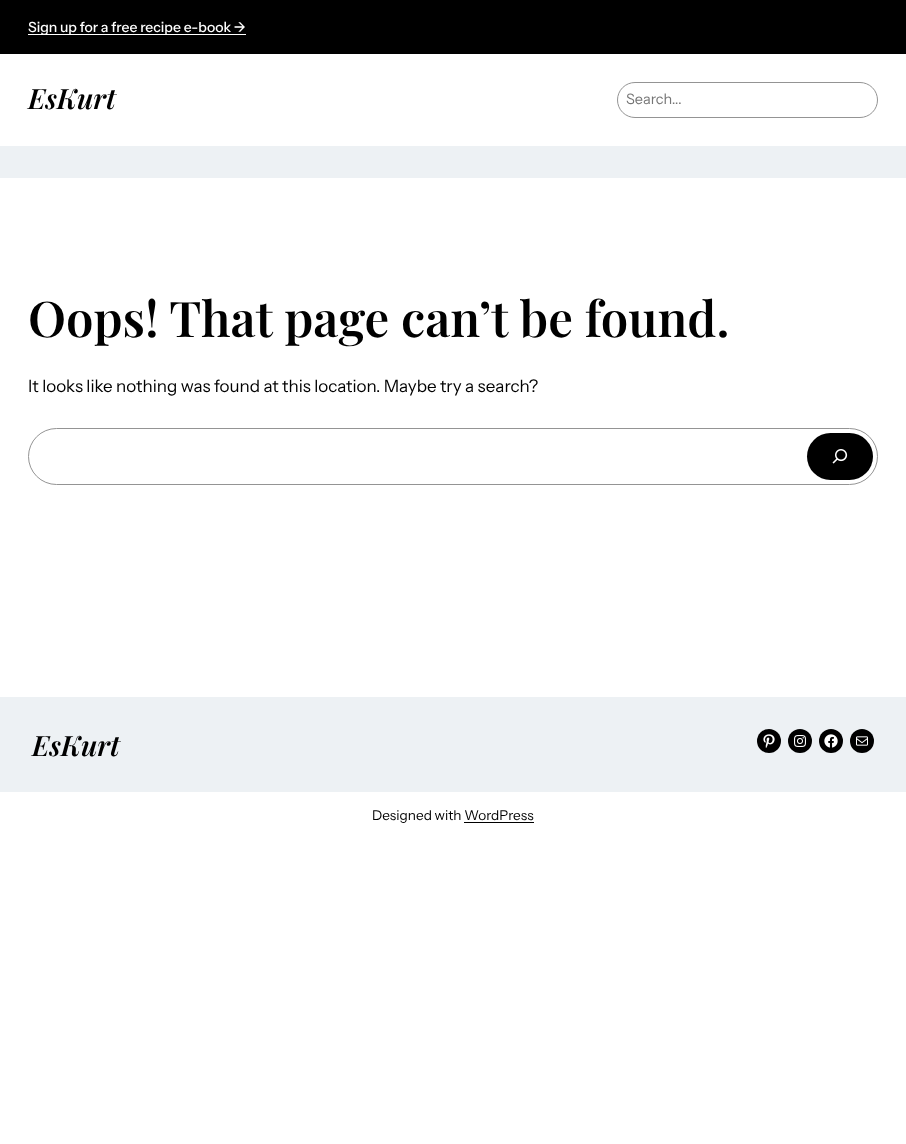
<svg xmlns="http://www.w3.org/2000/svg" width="906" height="1144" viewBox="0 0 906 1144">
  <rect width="100%" height="100%" fill="#ffffff"/>
  <rect x="0" y="0" width="906" height="54" fill="#000000"/>
  <rect x="28" y="34" width="218" height="1" fill="#ffffff"/>
  <text x="28" y="32" font-family="Instrument Sans" font-size="14" font-weight="500" fill="#ffffff">Sign up for a free recipe e-book →</text>
  <text x="28" y="109" font-family="Playfair Display" font-size="28" font-weight="600" font-style="italic" fill="#000000">EsKurt</text>
  <rect x="617.5" y="82.5" width="260" height="35" rx="17.5" fill="none" stroke="#949494"/>
  <text x="626" y="104" font-family="Instrument Sans" font-size="14.5" fill="#757575">Search...</text>
  <rect x="0" y="146" width="906" height="32" fill="#edf1f4"/>
  <text x="28" y="337" font-family="Playfair Display" font-size="49.1" font-weight="600" fill="#000000">Oops! That page can’t be found.</text>
  <text x="28" y="392" font-family="Instrument Sans" font-size="17" fill="#000000">It looks like nothing was found at this location. Maybe try a search?</text>
  <rect x="28.5" y="428.5" width="849" height="56" rx="28" fill="none" stroke="#949494"/>
  <rect x="807" y="433" width="66" height="47" rx="23.5" fill="#000000"/>
  <image x="832" y="449" width="16" height="15" href="img1.png"/>
  <rect x="0" y="697" width="906" height="95" fill="#edf1f4"/>
  <text x="32" y="756" font-family="Playfair Display" font-size="28" font-weight="600" font-style="italic" fill="#000000">EsKurt</text>
  <circle cx="769" cy="741" r="12" fill="#000000"/>
  <image x="763" y="734" width="12" height="14" href="img2.png"/>
  <circle cx="800" cy="741" r="12" fill="#000000"/>
  <image x="794" y="735" width="12" height="12" href="img3.png"/>
  <circle cx="831" cy="741" r="12" fill="#000000"/>
  <image x="824" y="734" width="14" height="14" href="img4.png"/>
  <circle cx="862" cy="741" r="12" fill="#000000"/>
  <image x="856" y="736" width="12" height="10" href="img5.png"/>
  <text x="372" y="820" font-family="Instrument Sans" font-size="13.6" fill="#000000">Designed with WordPress</text>
  <rect x="464" y="822" width="70" height="1" fill="#000000"/>
</svg>
